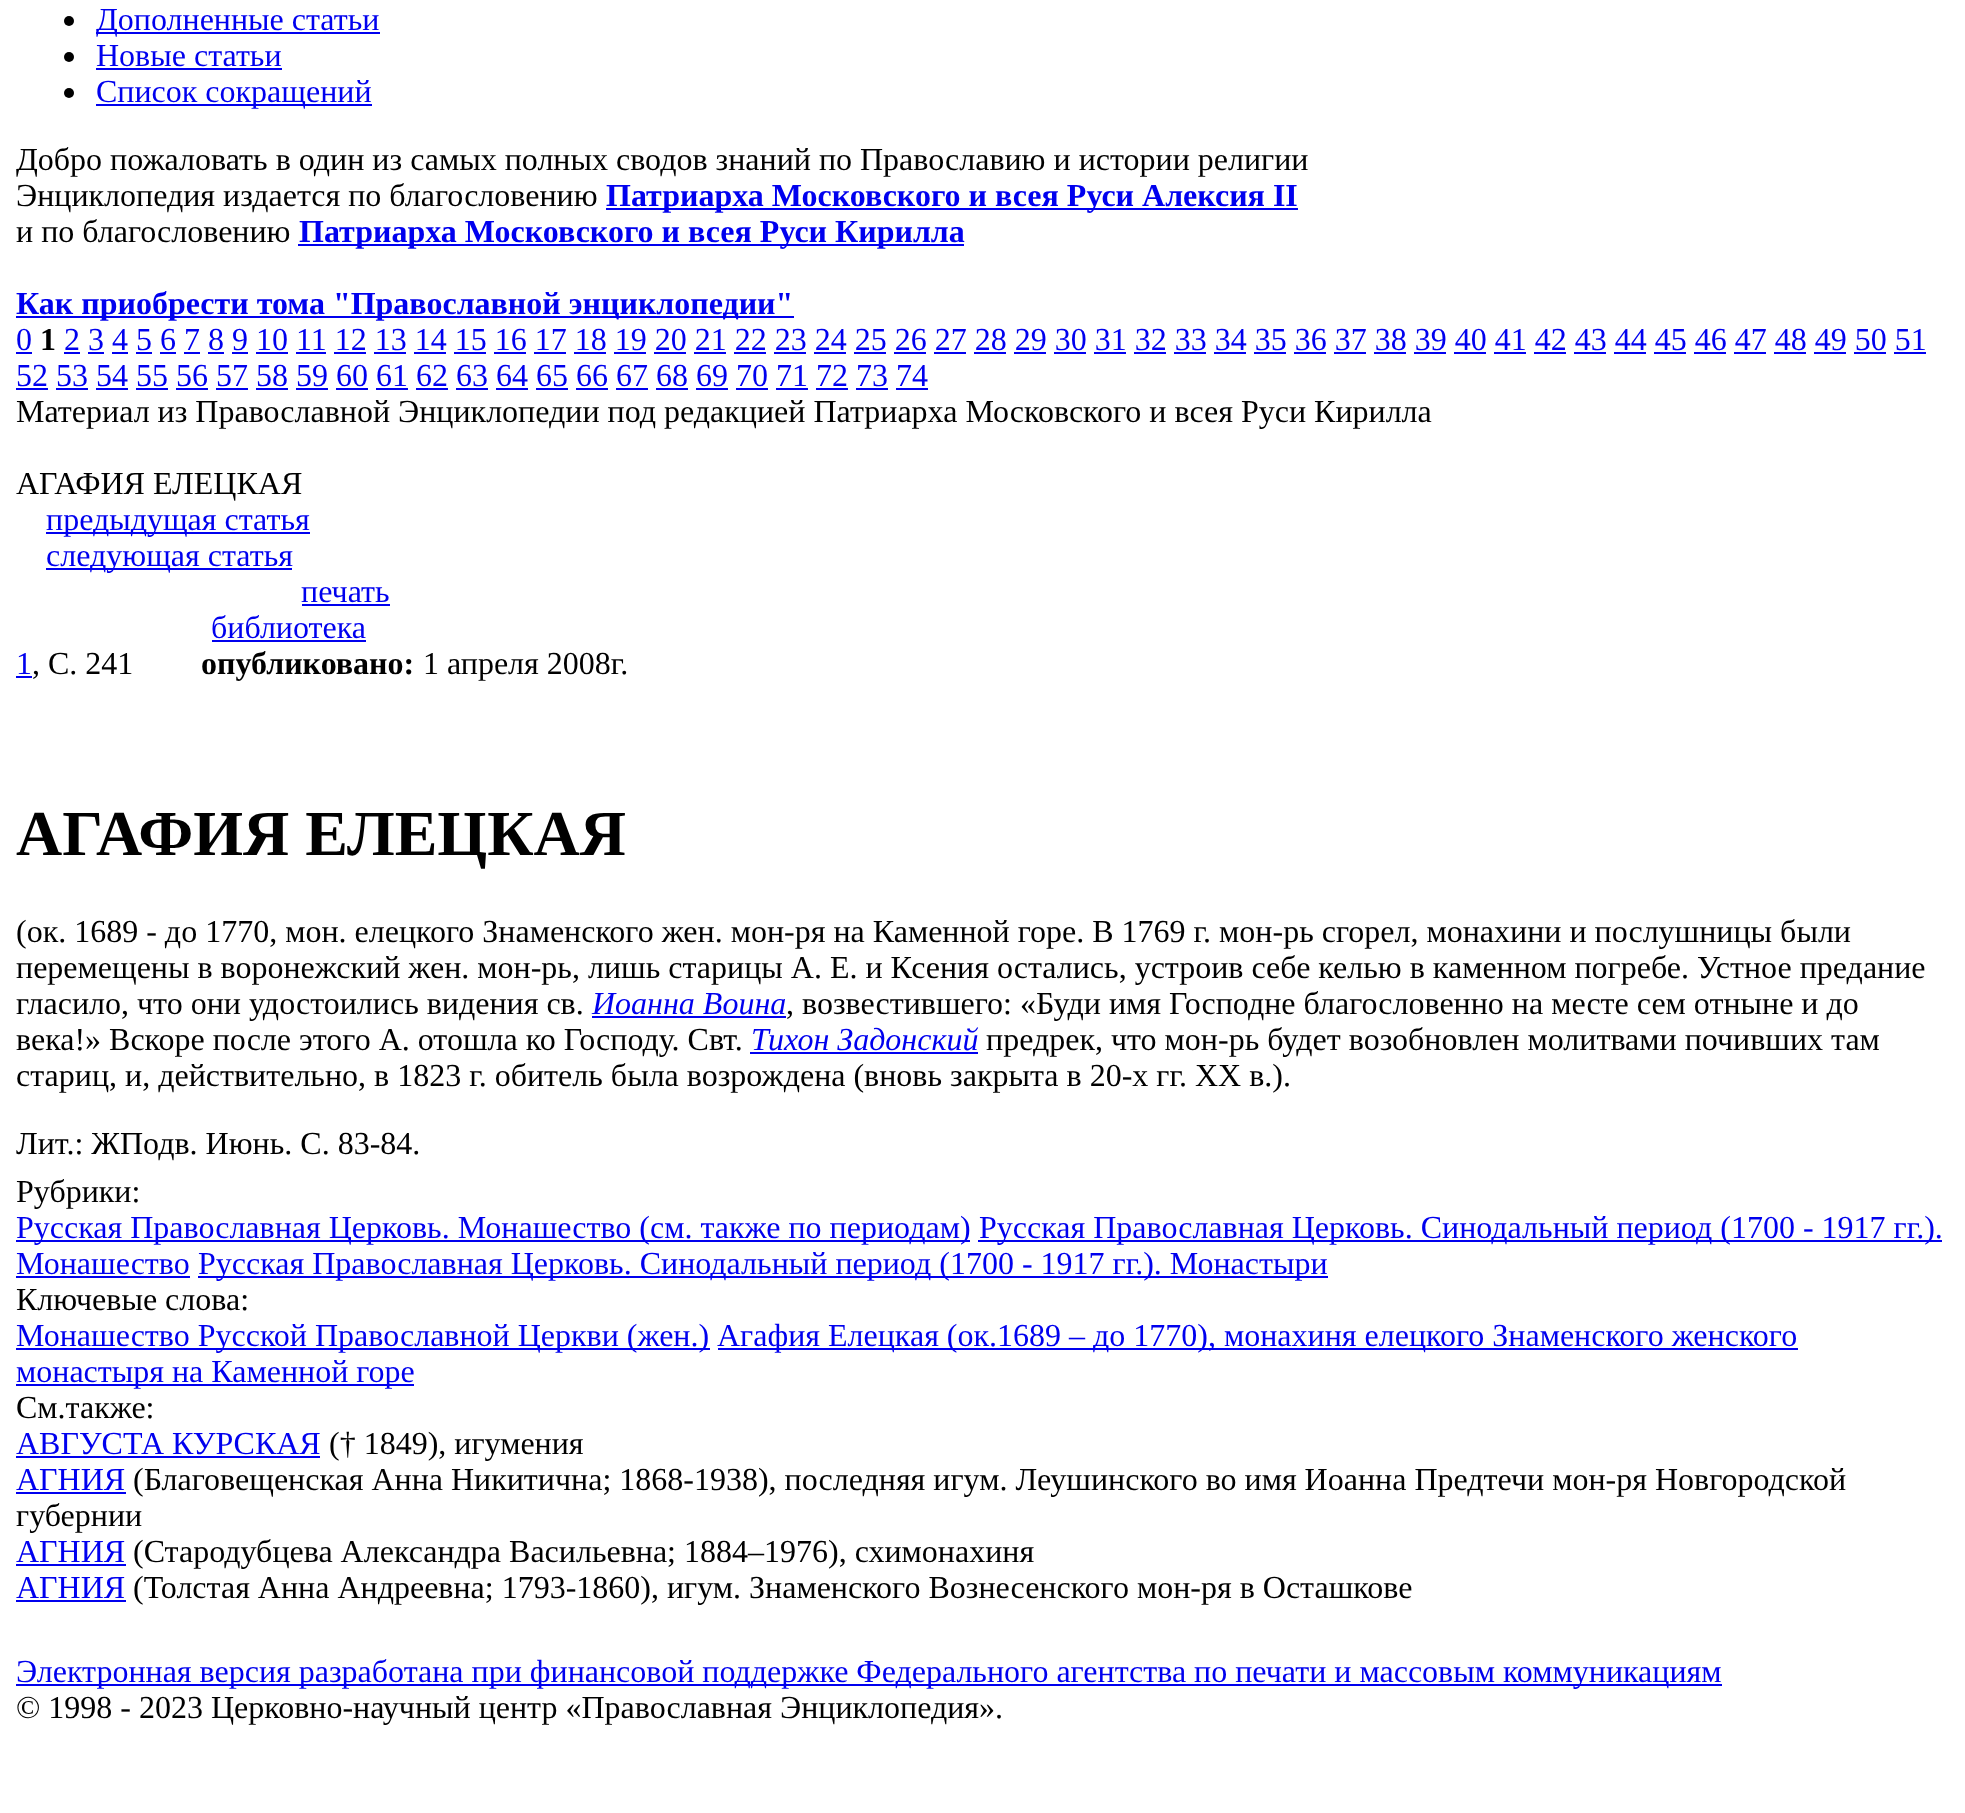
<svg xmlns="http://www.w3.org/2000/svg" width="1965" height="1813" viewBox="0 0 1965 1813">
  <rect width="100%" height="100%" fill="#ffffff"/>
  <circle cx="69" cy="21" r="5" fill="#000000"/>
  <rect x="96" y="32" width="284" height="2" fill="#0000ee"/>
  <text x="96" y="30" font-family="Liberation Serif" font-size="32" fill="#0000ee">Дополненные статьи</text>
  <circle cx="69" cy="57" r="5" fill="#000000"/>
  <text x="96" y="66" font-family="Liberation Serif" font-size="32" fill="#0000ee">Новые статьи</text>
  <rect x="96" y="68" width="186" height="2" fill="#0000ee"/>
  <circle cx="69" cy="93" r="5" fill="#000000"/>
  <rect x="96" y="104" width="276" height="2" fill="#0000ee"/>
  <text x="96" y="102" font-family="Liberation Serif" font-size="32" fill="#0000ee">Список сокращений</text>
  <text x="16" y="170" font-family="Liberation Serif" font-size="32" fill="#000000">Добро пожаловать в один из самых полных сводов знаний по Православию и истории религии</text>
  <text x="16" y="206" font-family="Liberation Serif" font-size="32" fill="#000000">Энциклопедия издается по благословению</text>
  <rect x="606" y="208" width="692" height="2" fill="#0000ee"/>
  <text x="606" y="206" font-family="Liberation Serif" font-size="32" font-weight="bold" fill="#0000ee">Патриарха Московского и всея Руси Алексия II</text>
  <text x="16" y="242" font-family="Liberation Serif" font-size="32" fill="#000000">и по благословению</text>
  <rect x="298" y="244" width="666" height="2" fill="#0000ee"/>
  <text x="299" y="242" font-family="Liberation Serif" font-size="32" font-weight="bold" fill="#0000ee">Патриарха Московского и всея Руси Кирилла</text>
  <rect x="16" y="316" width="778" height="2" fill="#0000ee"/>
  <text x="16" y="314" font-family="Liberation Serif" font-size="32" font-weight="bold" fill="#0000ee">Как приобрести тома "Православной энциклопедии"</text>
  <text x="16" y="350" font-family="Liberation Serif" font-size="32" fill="#0000ee">0</text>
  <rect x="16" y="352" width="16" height="2" fill="#0000ee"/>
  <text x="40" y="350" font-family="Liberation Serif" font-size="32" font-weight="bold" fill="#000000">1</text>
  <text x="64" y="350" font-family="Liberation Serif" font-size="32" fill="#0000ee">2 3 4 5 6 7 8 9 10 11 12 13 14 15 16 17 18 19 20 21 22 23 24 25 26 27 28 29 30 31 32 33 34 35 36 37 38 39 40 41 42 43 44 45 46 47 48 49 50 51</text>
  <rect x="64" y="352" width="16" height="2" fill="#0000ee"/>
  <rect x="88" y="352" width="16" height="2" fill="#0000ee"/>
  <rect x="112" y="352" width="16" height="2" fill="#0000ee"/>
  <rect x="136" y="352" width="16" height="2" fill="#0000ee"/>
  <rect x="160" y="352" width="16" height="2" fill="#0000ee"/>
  <rect x="184" y="352" width="16" height="2" fill="#0000ee"/>
  <rect x="208" y="352" width="16" height="2" fill="#0000ee"/>
  <rect x="232" y="352" width="16" height="2" fill="#0000ee"/>
  <rect x="256" y="352" width="32" height="2" fill="#0000ee"/>
  <rect x="296" y="352" width="30" height="2" fill="#0000ee"/>
  <rect x="334" y="352" width="32" height="2" fill="#0000ee"/>
  <rect x="374" y="352" width="32" height="2" fill="#0000ee"/>
  <rect x="414" y="352" width="32" height="2" fill="#0000ee"/>
  <rect x="454" y="352" width="32" height="2" fill="#0000ee"/>
  <rect x="494" y="352" width="32" height="2" fill="#0000ee"/>
  <rect x="534" y="352" width="32" height="2" fill="#0000ee"/>
  <rect x="574" y="352" width="32" height="2" fill="#0000ee"/>
  <rect x="614" y="352" width="32" height="2" fill="#0000ee"/>
  <rect x="654" y="352" width="32" height="2" fill="#0000ee"/>
  <rect x="694" y="352" width="32" height="2" fill="#0000ee"/>
  <rect x="734" y="352" width="32" height="2" fill="#0000ee"/>
  <rect x="774" y="352" width="32" height="2" fill="#0000ee"/>
  <rect x="814" y="352" width="32" height="2" fill="#0000ee"/>
  <rect x="854" y="352" width="32" height="2" fill="#0000ee"/>
  <rect x="894" y="352" width="32" height="2" fill="#0000ee"/>
  <rect x="934" y="352" width="32" height="2" fill="#0000ee"/>
  <rect x="974" y="352" width="32" height="2" fill="#0000ee"/>
  <rect x="1014" y="352" width="32" height="2" fill="#0000ee"/>
  <rect x="1054" y="352" width="32" height="2" fill="#0000ee"/>
  <rect x="1094" y="352" width="32" height="2" fill="#0000ee"/>
  <rect x="1134" y="352" width="32" height="2" fill="#0000ee"/>
  <rect x="1174" y="352" width="32" height="2" fill="#0000ee"/>
  <rect x="1214" y="352" width="32" height="2" fill="#0000ee"/>
  <rect x="1254" y="352" width="32" height="2" fill="#0000ee"/>
  <rect x="1294" y="352" width="32" height="2" fill="#0000ee"/>
  <rect x="1334" y="352" width="32" height="2" fill="#0000ee"/>
  <rect x="1374" y="352" width="32" height="2" fill="#0000ee"/>
  <rect x="1414" y="352" width="32" height="2" fill="#0000ee"/>
  <rect x="1454" y="352" width="32" height="2" fill="#0000ee"/>
  <rect x="1494" y="352" width="32" height="2" fill="#0000ee"/>
  <rect x="1534" y="352" width="32" height="2" fill="#0000ee"/>
  <rect x="1574" y="352" width="32" height="2" fill="#0000ee"/>
  <rect x="1614" y="352" width="32" height="2" fill="#0000ee"/>
  <rect x="1654" y="352" width="32" height="2" fill="#0000ee"/>
  <rect x="1694" y="352" width="32" height="2" fill="#0000ee"/>
  <rect x="1734" y="352" width="32" height="2" fill="#0000ee"/>
  <rect x="1774" y="352" width="32" height="2" fill="#0000ee"/>
  <rect x="1814" y="352" width="32" height="2" fill="#0000ee"/>
  <rect x="1854" y="352" width="32" height="2" fill="#0000ee"/>
  <rect x="1894" y="352" width="32" height="2" fill="#0000ee"/>
  <text x="16" y="386" font-family="Liberation Serif" font-size="32" fill="#0000ee">52 53 54 55 56 57 58 59 60 61 62 63 64 65 66 67 68 69 70 71 72 73 74</text>
  <rect x="16" y="388" width="32" height="2" fill="#0000ee"/>
  <rect x="56" y="388" width="32" height="2" fill="#0000ee"/>
  <rect x="96" y="388" width="32" height="2" fill="#0000ee"/>
  <rect x="136" y="388" width="32" height="2" fill="#0000ee"/>
  <rect x="176" y="388" width="32" height="2" fill="#0000ee"/>
  <rect x="216" y="388" width="32" height="2" fill="#0000ee"/>
  <rect x="256" y="388" width="32" height="2" fill="#0000ee"/>
  <rect x="296" y="388" width="32" height="2" fill="#0000ee"/>
  <rect x="336" y="388" width="32" height="2" fill="#0000ee"/>
  <rect x="376" y="388" width="32" height="2" fill="#0000ee"/>
  <rect x="416" y="388" width="32" height="2" fill="#0000ee"/>
  <rect x="456" y="388" width="32" height="2" fill="#0000ee"/>
  <rect x="496" y="388" width="32" height="2" fill="#0000ee"/>
  <rect x="536" y="388" width="32" height="2" fill="#0000ee"/>
  <rect x="576" y="388" width="32" height="2" fill="#0000ee"/>
  <rect x="616" y="388" width="32" height="2" fill="#0000ee"/>
  <rect x="656" y="388" width="32" height="2" fill="#0000ee"/>
  <rect x="696" y="388" width="32" height="2" fill="#0000ee"/>
  <rect x="736" y="388" width="32" height="2" fill="#0000ee"/>
  <rect x="776" y="388" width="32" height="2" fill="#0000ee"/>
  <rect x="816" y="388" width="32" height="2" fill="#0000ee"/>
  <rect x="856" y="388" width="32" height="2" fill="#0000ee"/>
  <rect x="896" y="388" width="32" height="2" fill="#0000ee"/>
  <text x="16" y="422" font-family="Liberation Serif" font-size="32" fill="#000000">Материал из Православной Энциклопедии под редакцией Патриарха Московского и всея Руси Кирилла</text>
  <text x="16" y="494" font-family="Liberation Serif" font-size="32" fill="#000000">АГАФИЯ ЕЛЕЦКАЯ</text>
  <rect x="46" y="532" width="264" height="2" fill="#0000ee"/>
  <text x="46" y="530" font-family="Liberation Serif" font-size="32" fill="#0000ee">предыдущая статья</text>
  <rect x="46" y="568" width="246" height="2" fill="#0000ee"/>
  <text x="46" y="566" font-family="Liberation Serif" font-size="32" fill="#0000ee">следующая статья</text>
  <text x="301" y="602" font-family="Liberation Serif" font-size="32" fill="#0000ee">печать</text>
  <rect x="302" y="604" width="88" height="2" fill="#0000ee"/>
  <text x="211" y="638" font-family="Liberation Serif" font-size="32" fill="#0000ee">библиотека</text>
  <rect x="212" y="640" width="154" height="2" fill="#0000ee"/>
  <text x="16" y="674" font-family="Liberation Serif" font-size="32" fill="#0000ee">1</text>
  <text x="32" y="674" font-family="Liberation Serif" font-size="32" fill="#000000">, С. 241</text>
  <rect x="16" y="676" width="16" height="2" fill="#0000ee"/>
  <text x="201" y="674" font-family="Liberation Serif" font-size="32" font-weight="bold" fill="#000000">опубликовано:</text>
  <text x="423" y="674" font-family="Liberation Serif" font-size="32" fill="#000000">1 апреля 2008г.</text>
  <text x="16" y="855" font-family="Liberation Serif" font-size="64" font-weight="bold" fill="#000000">АГАФИЯ ЕЛЕЦКАЯ</text>
  <text x="16" y="942" font-family="Liberation Serif" font-size="32" fill="#000000">(ок. 1689 - до 1770, мон. елецкого Знаменского жен. мон-ря на Каменной горе. В 1769 г. мон-рь сгорел, монахини и послушницы были</text>
  <text x="16" y="978" font-family="Liberation Serif" font-size="32" fill="#000000">перемещены в воронежский жен. мон-рь, лишь старицы А. Е. и Ксения остались, устроив себе келью в каменном погребе. Устное предание</text>
  <text x="16" y="1014" font-family="Liberation Serif" font-size="32" fill="#000000">гласило, что они удостоились видения св.</text>
  <text x="592" y="1014" font-family="Liberation Serif" font-size="32" font-style="italic" fill="#0000ee">Иоанна Воина</text>
  <rect x="592" y="1016" width="194" height="2" fill="#0000ee"/>
  <text x="786" y="1014" font-family="Liberation Serif" font-size="32" fill="#000000">, возвестившего: «Буди имя Господне благословенно на месте сем отныне и до</text>
  <text x="16" y="1050" font-family="Liberation Serif" font-size="32" fill="#000000">века!» Вскоре после этого А. отошла ко Господу. Свт.</text>
  <text x="751" y="1050" font-family="Liberation Serif" font-size="32" font-style="italic" fill="#0000ee">Тихон Задонский</text>
  <rect x="750" y="1052" width="228" height="2" fill="#0000ee"/>
  <text x="986" y="1050" font-family="Liberation Serif" font-size="32" fill="#000000">предрек, что мон-рь будет возобновлен молитвами почивших там</text>
  <text x="16" y="1086" font-family="Liberation Serif" font-size="32" fill="#000000">стариц, и, действительно, в 1823 г. обитель была возрождена (вновь закрыта в 20-х гг. ХХ в.).</text>
  <text x="16" y="1154" font-family="Liberation Serif" font-size="32" fill="#000000">Лит.: ЖПодв. Июнь. С. 83-84.</text>
  <text x="16" y="1202" font-family="Liberation Serif" font-size="32" fill="#000000">Рубрики:</text>
  <rect x="16" y="1240" width="954" height="2" fill="#0000ee"/>
  <text x="16" y="1238" font-family="Liberation Serif" font-size="32" fill="#0000ee">Русская Православная Церковь. Монашество (см. также по периодам)</text>
  <rect x="978" y="1240" width="964" height="2" fill="#0000ee"/>
  <text x="979" y="1238" font-family="Liberation Serif" font-size="32" fill="#0000ee">Русская Православная Церковь. Синодальный период (1700 - 1917 гг.).</text>
  <text x="16" y="1274" font-family="Liberation Serif" font-size="32" fill="#0000ee">Монашество</text>
  <rect x="16" y="1276" width="174" height="2" fill="#0000ee"/>
  <rect x="198" y="1276" width="1130" height="2" fill="#0000ee"/>
  <text x="198" y="1274" font-family="Liberation Serif" font-size="32" fill="#0000ee">Русская Православная Церковь. Синодальный период (1700 - 1917 гг.). Монастыри</text>
  <text x="16" y="1310" font-family="Liberation Serif" font-size="32" fill="#000000">Ключевые слова:</text>
  <rect x="16" y="1348" width="694" height="2" fill="#0000ee"/>
  <text x="16" y="1346" font-family="Liberation Serif" font-size="32" fill="#0000ee">Монашество Русской Православной Церкви (жен.)</text>
  <rect x="718" y="1348" width="1080" height="2" fill="#0000ee"/>
  <text x="717" y="1346" font-family="Liberation Serif" font-size="32" fill="#0000ee">Агафия Елецкая (ок.1689 – до 1770), монахиня елецкого Знаменского женского</text>
  <rect x="16" y="1384" width="398" height="2" fill="#0000ee"/>
  <text x="16" y="1382" font-family="Liberation Serif" font-size="32" fill="#0000ee">монастыря на Каменной горе</text>
  <text x="16" y="1418" font-family="Liberation Serif" font-size="32" fill="#000000">См.также:</text>
  <text x="16" y="1454" font-family="Liberation Serif" font-size="32" fill="#0000ee">АВГУСТА КУРСКАЯ</text>
  <rect x="16" y="1456" width="304" height="2" fill="#0000ee"/>
  <text x="329" y="1454" font-family="Liberation Serif" font-size="32" fill="#000000">(† 1849), игумения</text>
  <text x="16" y="1490" font-family="Liberation Serif" font-size="32" fill="#0000ee">АГНИЯ</text>
  <rect x="16" y="1492" width="110" height="2" fill="#0000ee"/>
  <text x="133" y="1490" font-family="Liberation Serif" font-size="32" fill="#000000">(Благовещенская Анна Никитична; 1868-1938), последняя игум. Леушинского во имя Иоанна Предтечи мон-ря Новгородской</text>
  <text x="16" y="1526" font-family="Liberation Serif" font-size="32" fill="#000000">губернии</text>
  <text x="16" y="1562" font-family="Liberation Serif" font-size="32" fill="#0000ee">АГНИЯ</text>
  <rect x="16" y="1564" width="110" height="2" fill="#0000ee"/>
  <text x="133" y="1562" font-family="Liberation Serif" font-size="32" fill="#000000">(Стародубцева Александра Васильевна; 1884–1976), схимонахиня</text>
  <text x="16" y="1598" font-family="Liberation Serif" font-size="32" fill="#0000ee">АГНИЯ</text>
  <rect x="16" y="1600" width="110" height="2" fill="#0000ee"/>
  <text x="133" y="1598" font-family="Liberation Serif" font-size="32" fill="#000000">(Толстая Анна Андреевна; 1793-1860), игум. Знаменского Вознесенского мон-ря в Осташкове</text>
  <rect x="16" y="1684" width="1706" height="2" fill="#0000ee"/>
  <text x="16" y="1682" font-family="Liberation Serif" font-size="32" fill="#0000ee">Электронная версия разработана при финансовой поддержке Федерального агентства по печати и массовым коммуникациям</text>
  <text x="16" y="1718" font-family="Liberation Serif" font-size="32" fill="#000000">© 1998 - 2023 Церковно-научный центр «Православная Энциклопедия».</text>
</svg>
